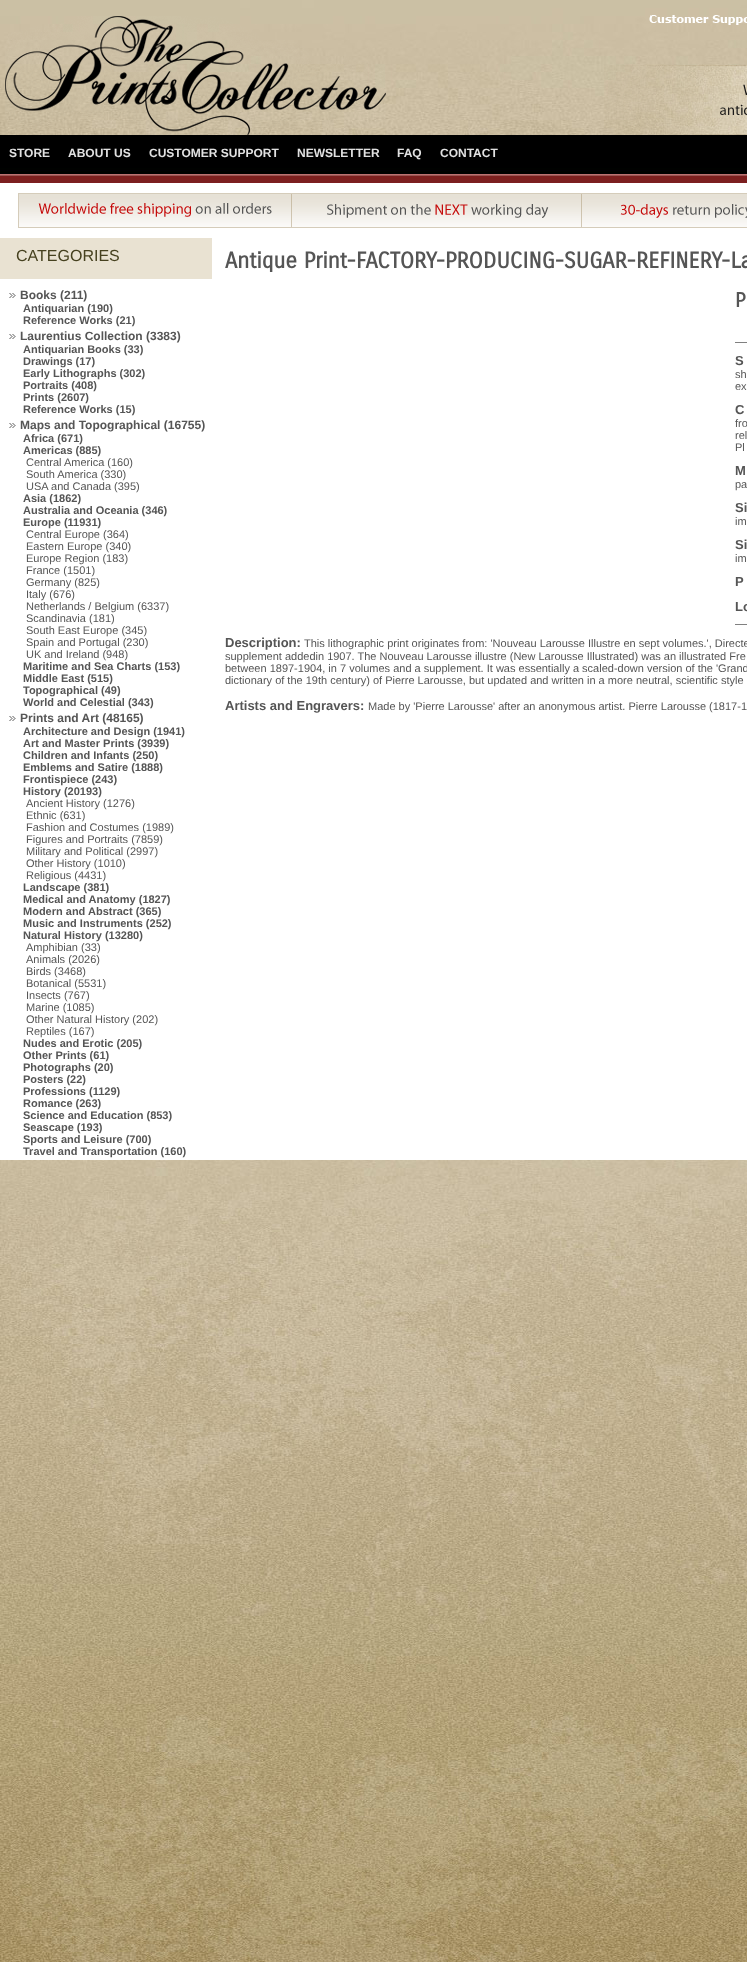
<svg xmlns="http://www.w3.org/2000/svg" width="747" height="1962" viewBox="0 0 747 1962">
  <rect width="100%" height="100%" fill="#ffffff"/>
  <image x="0" y="0" width="747" height="1962" href="img1.png"/>
  <image x="5" y="16" width="381" height="119" href="img2.png"/>
  <image x="649" y="15" width="98" height="10" href="img3.png"/>
  <image x="604" y="65" width="143" height="69" href="img4.png"/>
  <image x="0" y="135" width="747" height="48" href="img5.png"/>
  <text x="9" y="157" font-family="Liberation Sans" font-size="12" font-weight="bold" fill="#e1e1e1">STORE</text>
  <text x="68" y="157" font-family="Liberation Sans" font-size="12" font-weight="bold" fill="#e1e1e1">ABOUT US</text>
  <text x="149" y="157" font-family="Liberation Sans" font-size="12" font-weight="bold" fill="#e1e1e1">CUSTOMER SUPPORT</text>
  <text x="297" y="157" font-family="Liberation Sans" font-size="12" font-weight="bold" fill="#e1e1e1">NEWSLETTER</text>
  <text x="397" y="157" font-family="Liberation Sans" font-size="12" font-weight="bold" fill="#e1e1e1">FAQ</text>
  <text x="440" y="157" font-family="Liberation Sans" font-size="12" font-weight="bold" fill="#e1e1e1">CONTACT</text>
  <rect x="0" y="183" width="747" height="977" fill="#ffffff"/>
  <image x="18" y="193" width="729" height="35" href="img6.png"/>
  <rect x="0" y="238" width="212" height="41" fill="#e9e2d2"/>
  <text x="16" y="261" font-family="Liberation Sans" font-size="16" fill="#46411f">CATEGORIES</text>
  <image x="9" y="293" width="7" height="5" href="img7.png"/>
  <text x="20" y="299" font-family="Liberation Sans" font-size="12" font-weight="bold" fill="#555555">Books (211)</text>
  <text x="23" y="312" font-family="Liberation Sans" font-size="11" font-weight="bold" fill="#555555">Antiquarian (190)</text>
  <text x="23" y="324" font-family="Liberation Sans" font-size="11" font-weight="bold" fill="#555555">Reference Works (21)</text>
  <image x="9" y="334" width="7" height="5" href="img7.png"/>
  <text x="20" y="340" font-family="Liberation Sans" font-size="12" font-weight="bold" fill="#555555">Laurentius Collection (3383)</text>
  <text x="23" y="353" font-family="Liberation Sans" font-size="11" font-weight="bold" fill="#555555">Antiquarian Books (33)</text>
  <text x="23" y="365" font-family="Liberation Sans" font-size="11" font-weight="bold" fill="#555555">Drawings (17)</text>
  <text x="23" y="377" font-family="Liberation Sans" font-size="11" font-weight="bold" fill="#555555">Early Lithographs (302)</text>
  <text x="23" y="389" font-family="Liberation Sans" font-size="11" font-weight="bold" fill="#555555">Portraits (408)</text>
  <text x="23" y="401" font-family="Liberation Sans" font-size="11" font-weight="bold" fill="#555555">Prints (2607)</text>
  <text x="23" y="413" font-family="Liberation Sans" font-size="11" font-weight="bold" fill="#555555">Reference Works (15)</text>
  <image x="9" y="423" width="7" height="5" href="img7.png"/>
  <text x="20" y="429" font-family="Liberation Sans" font-size="12" font-weight="bold" fill="#555555">Maps and Topographical (16755)</text>
  <text x="23" y="442" font-family="Liberation Sans" font-size="11" font-weight="bold" fill="#555555">Africa (671)</text>
  <text x="23" y="454" font-family="Liberation Sans" font-size="11" font-weight="bold" fill="#555555">Americas (885)</text>
  <text x="26" y="466" font-family="Liberation Sans" font-size="11" fill="#555555">Central America (160)</text>
  <text x="26" y="478" font-family="Liberation Sans" font-size="11" fill="#555555">South America (330)</text>
  <text x="26" y="490" font-family="Liberation Sans" font-size="11" fill="#555555">USA and Canada (395)</text>
  <text x="23" y="502" font-family="Liberation Sans" font-size="11" font-weight="bold" fill="#555555">Asia (1862)</text>
  <text x="23" y="514" font-family="Liberation Sans" font-size="11" font-weight="bold" fill="#555555">Australia and Oceania (346)</text>
  <text x="23" y="526" font-family="Liberation Sans" font-size="11" font-weight="bold" fill="#555555">Europe (11931)</text>
  <text x="26" y="538" font-family="Liberation Sans" font-size="11" fill="#555555">Central Europe (364)</text>
  <text x="26" y="550" font-family="Liberation Sans" font-size="11" fill="#555555">Eastern Europe (340)</text>
  <text x="26" y="562" font-family="Liberation Sans" font-size="11" fill="#555555">Europe Region (183)</text>
  <text x="26" y="574" font-family="Liberation Sans" font-size="11" fill="#555555">France (1501)</text>
  <text x="26" y="586" font-family="Liberation Sans" font-size="11" fill="#555555">Germany (825)</text>
  <text x="26" y="598" font-family="Liberation Sans" font-size="11" fill="#555555">Italy (676)</text>
  <text x="26" y="610" font-family="Liberation Sans" font-size="11" fill="#555555">Netherlands / Belgium (6337)</text>
  <text x="26" y="622" font-family="Liberation Sans" font-size="11" fill="#555555">Scandinavia (181)</text>
  <text x="26" y="634" font-family="Liberation Sans" font-size="11" fill="#555555">South East Europe (345)</text>
  <text x="26" y="646" font-family="Liberation Sans" font-size="11" fill="#555555">Spain and Portugal (230)</text>
  <text x="26" y="658" font-family="Liberation Sans" font-size="11" fill="#555555">UK and Ireland (948)</text>
  <text x="23" y="670" font-family="Liberation Sans" font-size="11" font-weight="bold" fill="#555555">Maritime and Sea Charts (153)</text>
  <text x="23" y="682" font-family="Liberation Sans" font-size="11" font-weight="bold" fill="#555555">Middle East (515)</text>
  <text x="23" y="694" font-family="Liberation Sans" font-size="11" font-weight="bold" fill="#555555">Topographical (49)</text>
  <text x="23" y="706" font-family="Liberation Sans" font-size="11" font-weight="bold" fill="#555555">World and Celestial (343)</text>
  <image x="9" y="716" width="7" height="5" href="img7.png"/>
  <text x="20" y="722" font-family="Liberation Sans" font-size="12" font-weight="bold" fill="#555555">Prints and Art (48165)</text>
  <text x="23" y="735" font-family="Liberation Sans" font-size="11" font-weight="bold" fill="#555555">Architecture and Design (1941)</text>
  <text x="23" y="747" font-family="Liberation Sans" font-size="11" font-weight="bold" fill="#555555">Art and Master Prints (3939)</text>
  <text x="23" y="759" font-family="Liberation Sans" font-size="11" font-weight="bold" fill="#555555">Children and Infants (250)</text>
  <text x="23" y="771" font-family="Liberation Sans" font-size="11" font-weight="bold" fill="#555555">Emblems and Satire (1888)</text>
  <text x="23" y="783" font-family="Liberation Sans" font-size="11" font-weight="bold" fill="#555555">Frontispiece (243)</text>
  <text x="23" y="795" font-family="Liberation Sans" font-size="11" font-weight="bold" fill="#555555">History (20193)</text>
  <text x="26" y="807" font-family="Liberation Sans" font-size="11" fill="#555555">Ancient History (1276)</text>
  <text x="26" y="819" font-family="Liberation Sans" font-size="11" fill="#555555">Ethnic (631)</text>
  <text x="26" y="831" font-family="Liberation Sans" font-size="11" fill="#555555">Fashion and Costumes (1989)</text>
  <text x="26" y="843" font-family="Liberation Sans" font-size="11" fill="#555555">Figures and Portraits (7859)</text>
  <text x="26" y="855" font-family="Liberation Sans" font-size="11" fill="#555555">Military and Political (2997)</text>
  <text x="26" y="867" font-family="Liberation Sans" font-size="11" fill="#555555">Other History (1010)</text>
  <text x="26" y="879" font-family="Liberation Sans" font-size="11" fill="#555555">Religious (4431)</text>
  <text x="23" y="891" font-family="Liberation Sans" font-size="11" font-weight="bold" fill="#555555">Landscape (381)</text>
  <text x="23" y="903" font-family="Liberation Sans" font-size="11" font-weight="bold" fill="#555555">Medical and Anatomy (1827)</text>
  <text x="23" y="915" font-family="Liberation Sans" font-size="11" font-weight="bold" fill="#555555">Modern and Abstract (365)</text>
  <text x="23" y="927" font-family="Liberation Sans" font-size="11" font-weight="bold" fill="#555555">Music and Instruments (252)</text>
  <text x="23" y="939" font-family="Liberation Sans" font-size="11" font-weight="bold" fill="#555555">Natural History (13280)</text>
  <text x="26" y="951" font-family="Liberation Sans" font-size="11" fill="#555555">Amphibian (33)</text>
  <text x="26" y="963" font-family="Liberation Sans" font-size="11" fill="#555555">Animals (2026)</text>
  <text x="26" y="975" font-family="Liberation Sans" font-size="11" fill="#555555">Birds (3468)</text>
  <text x="26" y="987" font-family="Liberation Sans" font-size="11" fill="#555555">Botanical (5531)</text>
  <text x="26" y="999" font-family="Liberation Sans" font-size="11" fill="#555555">Insects (767)</text>
  <text x="26" y="1011" font-family="Liberation Sans" font-size="11" fill="#555555">Marine (1085)</text>
  <text x="26" y="1023" font-family="Liberation Sans" font-size="11" fill="#555555">Other Natural History (202)</text>
  <text x="26" y="1035" font-family="Liberation Sans" font-size="11" fill="#555555">Reptiles (167)</text>
  <text x="23" y="1047" font-family="Liberation Sans" font-size="11" font-weight="bold" fill="#555555">Nudes and Erotic (205)</text>
  <text x="23" y="1059" font-family="Liberation Sans" font-size="11" font-weight="bold" fill="#555555">Other Prints (61)</text>
  <text x="23" y="1071" font-family="Liberation Sans" font-size="11" font-weight="bold" fill="#555555">Photographs (20)</text>
  <text x="23" y="1083" font-family="Liberation Sans" font-size="11" font-weight="bold" fill="#555555">Posters (22)</text>
  <text x="23" y="1095" font-family="Liberation Sans" font-size="11" font-weight="bold" fill="#555555">Professions (1129)</text>
  <text x="23" y="1107" font-family="Liberation Sans" font-size="11" font-weight="bold" fill="#555555">Romance (263)</text>
  <text x="23" y="1119" font-family="Liberation Sans" font-size="11" font-weight="bold" fill="#555555">Science and Education (853)</text>
  <text x="23" y="1131" font-family="Liberation Sans" font-size="11" font-weight="bold" fill="#555555">Seascape (193)</text>
  <text x="23" y="1143" font-family="Liberation Sans" font-size="11" font-weight="bold" fill="#555555">Sports and Leisure (700)</text>
  <text x="23" y="1155" font-family="Liberation Sans" font-size="11" font-weight="bold" fill="#555555">Travel and Transportation (160)</text>
  <text x="225" y="268" font-family="Carrois Gothic" font-size="22" font-weight="bold" fill="#555555">Antique Print-FACTORY-PRODUCING-SUGAR-REFINERY-La</text>
  <text x="735" y="307" font-family="Carrois Gothic" font-size="20" font-weight="bold" fill="#555555">P</text>
  <rect x="735" y="342" width="12" height="1" fill="#808080"/>
  <rect x="735" y="624" width="12" height="1" fill="#808080"/>
  <text x="735" y="365" font-family="Liberation Sans" font-size="13" font-weight="bold" fill="#555555">S</text>
  <text x="735" y="378" font-family="Liberation Sans" font-size="11" fill="#555555">sh</text>
  <text x="735" y="390" font-family="Liberation Sans" font-size="11" fill="#555555">ex</text>
  <text x="735" y="414" font-family="Liberation Sans" font-size="13" font-weight="bold" fill="#555555">C</text>
  <text x="735" y="427" font-family="Liberation Sans" font-size="11" fill="#555555">fro</text>
  <text x="735" y="439" font-family="Liberation Sans" font-size="11" fill="#555555">rel</text>
  <text x="735" y="451" font-family="Liberation Sans" font-size="11" fill="#555555">Pl</text>
  <text x="735" y="475" font-family="Liberation Sans" font-size="13" font-weight="bold" fill="#555555">M</text>
  <text x="735" y="488" font-family="Liberation Sans" font-size="11" fill="#555555">pa</text>
  <text x="735" y="512" font-family="Liberation Sans" font-size="13" font-weight="bold" fill="#555555">Si</text>
  <text x="735" y="525" font-family="Liberation Sans" font-size="11" fill="#555555">im</text>
  <text x="735" y="549" font-family="Liberation Sans" font-size="13" font-weight="bold" fill="#555555">Si</text>
  <text x="735" y="562" font-family="Liberation Sans" font-size="11" fill="#555555">im</text>
  <text x="735" y="586" font-family="Liberation Sans" font-size="13" font-weight="bold" fill="#555555">P</text>
  <text x="735" y="611" font-family="Liberation Sans" font-size="13" font-weight="bold" fill="#555555">Lo</text>
  <text x="225" y="647" font-family="Liberation Sans" font-size="13" font-weight="bold" fill="#555555">Description:</text>
  <text x="304" y="647" font-family="Liberation Sans" font-size="11" fill="#555555">This lithographic print originates from: 'Nouveau Larousse Illustre en sept volumes.', Directe</text>
  <text x="225" y="660" font-family="Liberation Sans" font-size="11" fill="#555555">supplement addedin 1907. The Nouveau Larousse illustre (New Larousse Illustrated) was an illustrated Fre</text>
  <text x="225" y="672" font-family="Liberation Sans" font-size="11" fill="#555555">between 1897-1904, in 7 volumes and a supplement. It was essentially a scaled-down version of the 'Grand</text>
  <text x="225" y="684" font-family="Liberation Sans" font-size="11" fill="#555555">dictionary of the 19th century) of Pierre Larousse, but updated and written in a more neutral, scientific style</text>
  <text x="225" y="710" font-family="Liberation Sans" font-size="13" font-weight="bold" fill="#555555">Artists and Engravers:</text>
  <text x="368" y="710" font-family="Liberation Sans" font-size="11" fill="#555555">Made by 'Pierre Larousse' after an anonymous artist. Pierre Larousse (1817-1</text>
</svg>
